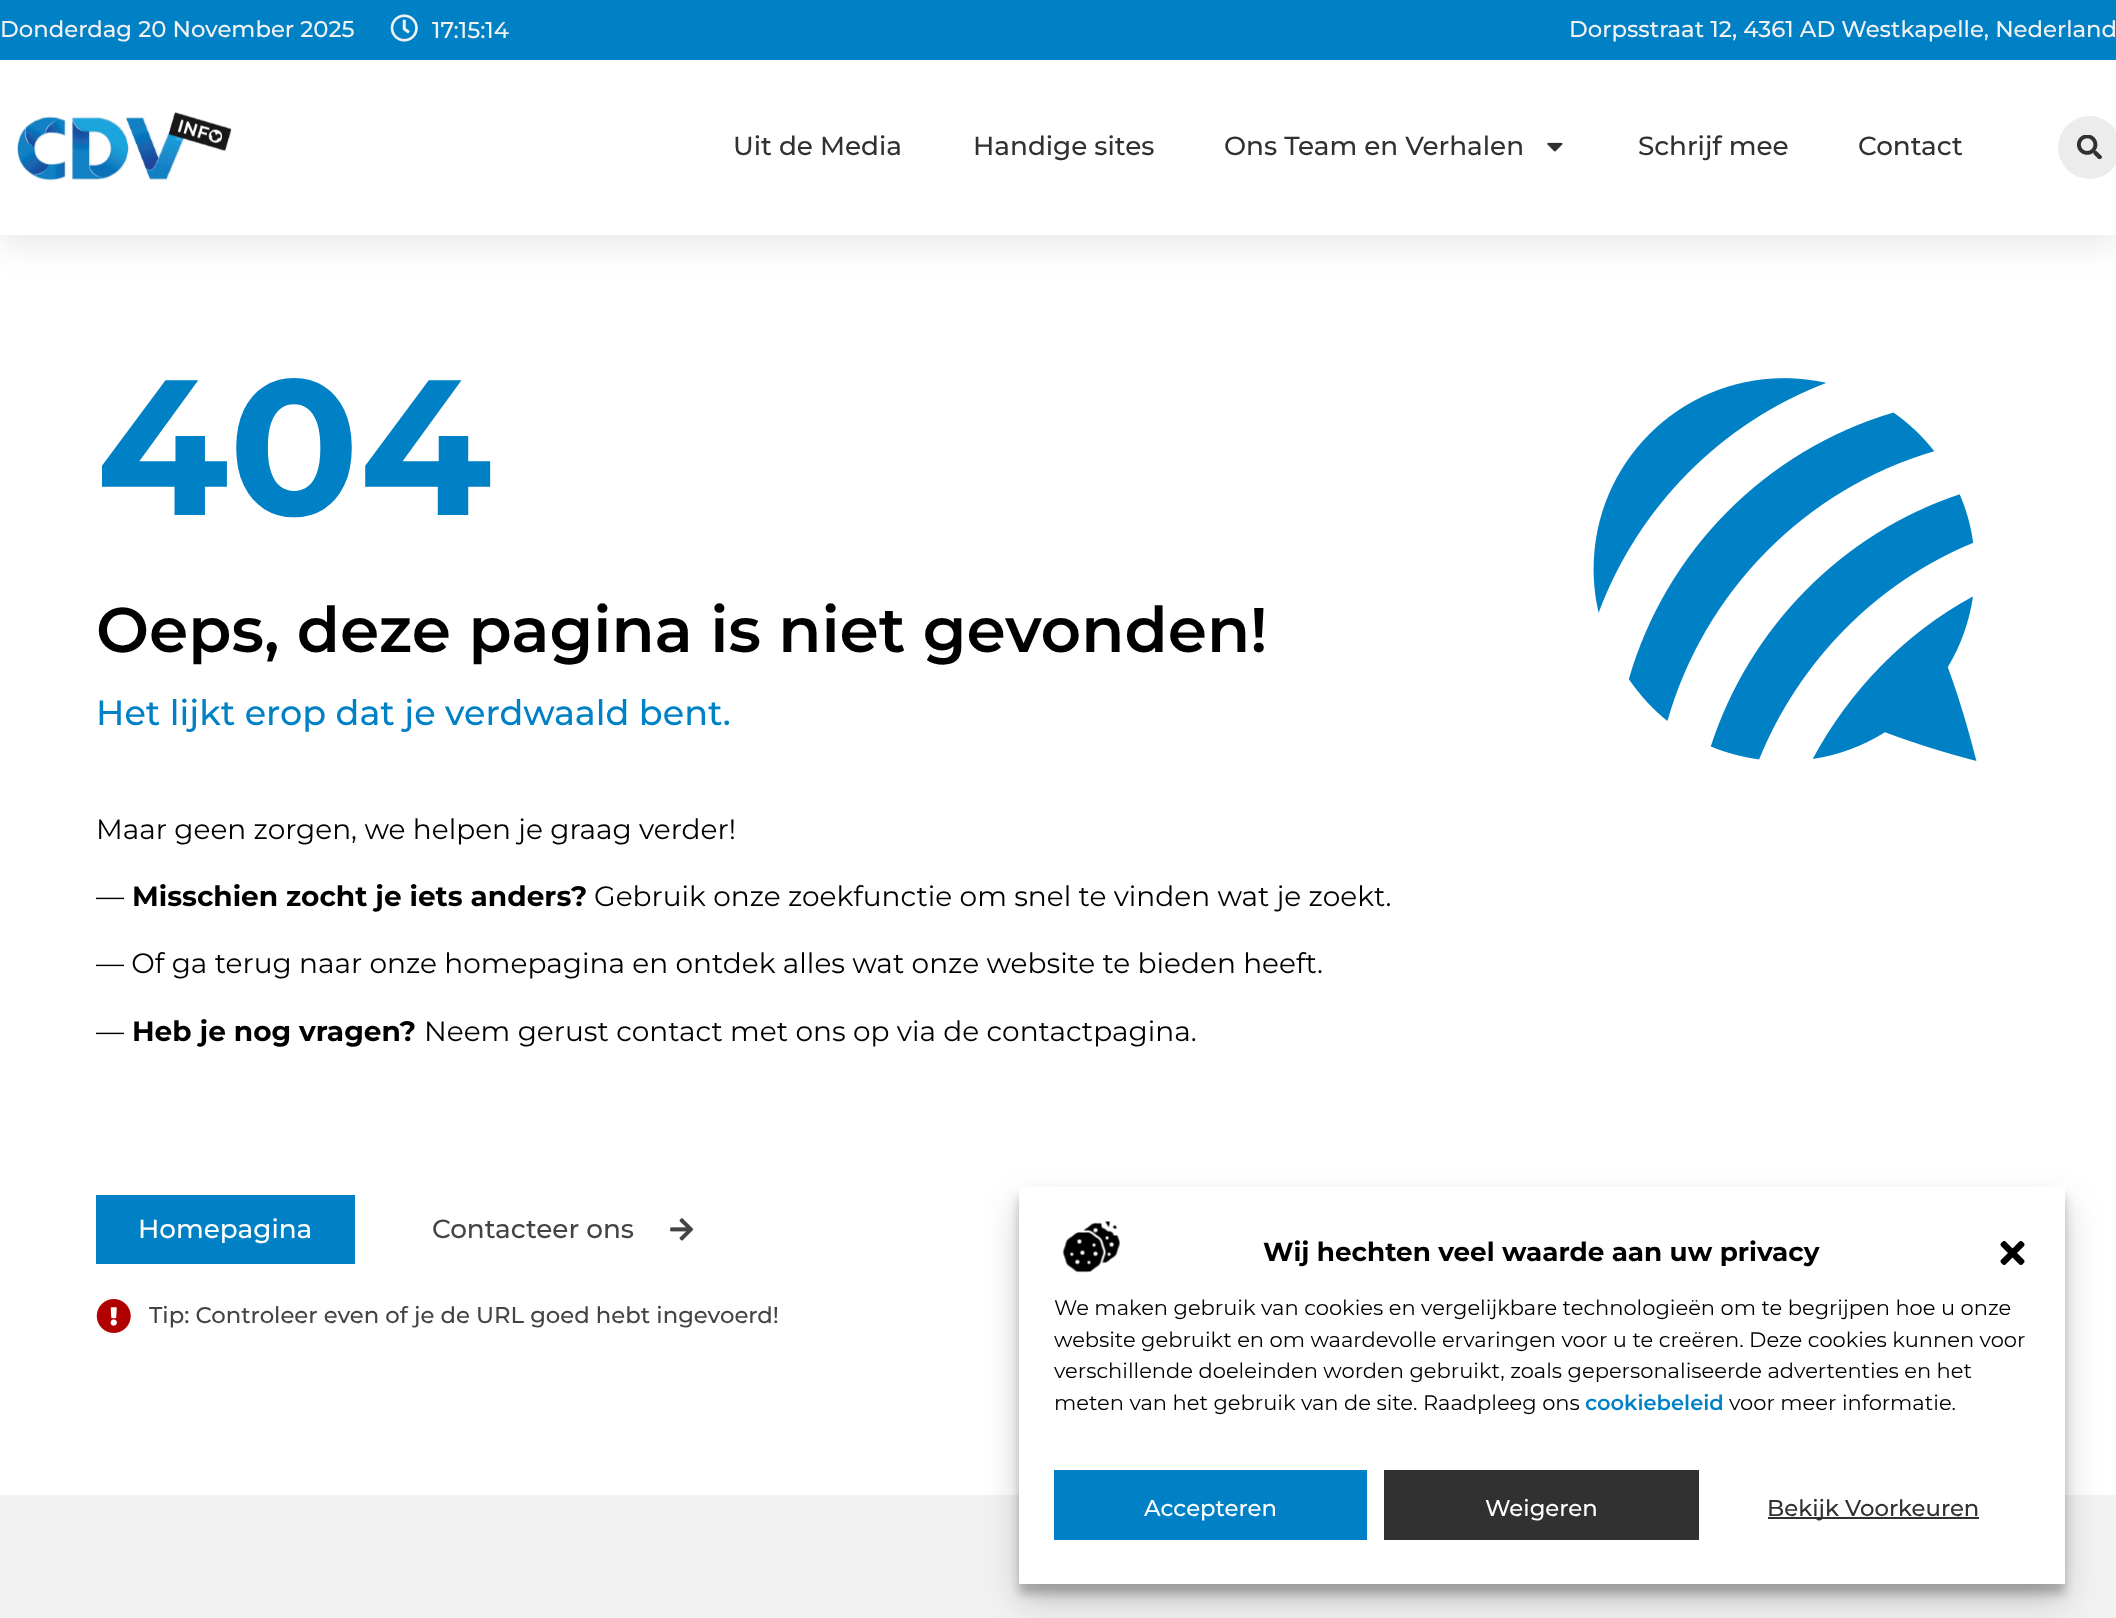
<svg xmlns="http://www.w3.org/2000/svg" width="2116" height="1618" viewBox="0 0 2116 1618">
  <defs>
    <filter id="blur1" x="-50%" y="-200%" width="200%" height="500%"><feGaussianBlur stdDeviation="17.5"/></filter>
    <filter id="blur2" x="-50%" y="-200%" width="200%" height="500%"><feGaussianBlur stdDeviation="5"/></filter>
  </defs>
  <rect width="100%" height="100%" fill="#ffffff"/>
  <rect x="0" y="9" width="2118" height="234" fill="#000000" fill-opacity="0.1" filter="url(#blur1)"/>
  <rect x="0" y="0" width="2116" height="60" fill="#0080c5"/>
  <text x="0" y="37" font-family="Montserrat" font-size="22.75" font-weight="500" fill="#f2f2f2">Donderdag 20 November 2025</text>
  <image x="390" y="14" width="28" height="28" href="img1.png"/>
  <text x="432" y="38" font-family="Montserrat" font-size="22.75" font-weight="500" fill="#f2f2f2">17:15:14</text>
  <text x="1569" y="37" font-family="Montserrat" font-size="22.75" font-weight="500" fill="#f2f2f2">Dorpsstraat 12, 4361 AD Westkapelle, Nederland</text>
  <rect x="0" y="60" width="2116" height="175" fill="#ffffff"/>
  <image x="17" y="112" width="215" height="69" href="img2.png"/>
  <text x="733" y="155" font-family="Montserrat" font-size="26.25" font-weight="500" fill="#313131">Uit de Media</text>
  <text x="973" y="155" font-family="Montserrat" font-size="26.25" font-weight="500" fill="#313131">Handige sites</text>
  <text x="1224" y="155" font-family="Montserrat" font-size="26.25" font-weight="500" fill="#313131">Ons Team en Verhalen</text>
  <image x="1547" y="142" width="16" height="10" href="img3.png"/>
  <text x="1638" y="155" font-family="Montserrat" font-size="26.25" font-weight="500" fill="#313131">Schrijf mee</text>
  <text x="1858" y="155" font-family="Montserrat" font-size="26.25" font-weight="500" fill="#313131">Contact</text>
  <circle cx="2089.5" cy="147.5" r="31.5" fill="#ececec"/>
  <image x="2077" y="135" width="25" height="24" href="img4.png"/>
  <text x="96" y="515" font-family="Montserrat" font-size="192.5" font-weight="bold" fill="#0080c5">404</text>
  <text x="96" y="652" font-family="Montserrat" font-size="63" font-weight="600" fill="#000000">Oeps, deze pagina is niet gevonden!</text>
  <text x="96" y="725" font-family="Montserrat" font-size="35" font-weight="500" fill="#0080c5">Het lijkt erop dat je verdwaald bent.</text>
  <text x="96" y="839" font-family="Montserrat" font-size="28" fill="#000000">Maar geen zorgen, we helpen je graag verder!</text>
  <text x="96" y="906" font-family="Montserrat" font-size="28" fill="#000000">—</text>
  <text x="132" y="906" font-family="Montserrat" font-size="28" font-weight="bold" fill="#000000">Misschien zocht je iets anders?</text>
  <text x="594" y="906" font-family="Montserrat" font-size="28" fill="#000000">Gebruik onze zoekfunctie om snel te vinden wat je zoekt.</text>
  <text x="96" y="973" font-family="Montserrat" font-size="28" fill="#000000">— Of ga terug naar onze homepagina en ontdek alles wat onze website te bieden heeft.</text>
  <text x="96" y="1041" font-family="Montserrat" font-size="28" fill="#000000">—</text>
  <text x="132" y="1041" font-family="Montserrat" font-size="28" font-weight="bold" fill="#000000">Heb je nog vragen?</text>
  <text x="424" y="1041" font-family="Montserrat" font-size="28" fill="#000000">Neem gerust contact met ons op via de contactpagina.</text>
  <rect x="96" y="1195" width="259" height="69" fill="#0080c5"/>
  <text x="138" y="1238" font-family="Montserrat" font-size="26.25" font-weight="500" fill="#ffffff">Homepagina</text>
  <text x="432" y="1238" font-family="Montserrat" font-size="26.25" font-weight="500" fill="#444444">Contacteer ons</text>
  <image x="670" y="1218" width="24" height="23" href="img5.png"/>
  <image x="96" y="1299" width="35" height="34" href="img6.png"/>
  <text x="149" y="1323" font-family="Montserrat" font-size="22.75" font-weight="500" fill="#444444">Tip: Controleer even of je de URL goed hebt ingevoerd!</text>
  <image x="1593" y="378" width="384" height="383" href="img7.png"/>
  <rect x="0" y="1495" width="2116" height="123" fill="#f2f2f2"/>
  <rect x="1019" y="1197" width="1046" height="397" fill="#000000" fill-opacity="0.23" filter="url(#blur2)"/>
  <rect x="1019" y="1204" width="1046" height="397" fill="#000000" fill-opacity="0.19" filter="url(#blur1)"/>
  <rect x="1019" y="1187" width="1046" height="397" fill="#ffffff"/>
  <image x="1062" y="1221" width="59" height="52" href="img8.png"/>
  <text x="1263" y="1261" font-family="Montserrat" font-size="26.25" font-weight="bold" fill="#000000">Wij hechten veel waarde aan uw privacy</text>
  <image x="2000" y="1241" width="25" height="24" href="img9.png"/>
  <text x="1054" y="1315" font-family="Montserrat" font-size="21" fill="#000000">We maken gebruik van cookies en vergelijkbare technologieën om te begrijpen hoe u onze</text>
  <text x="1054" y="1347" font-family="Montserrat" font-size="21" fill="#000000">website gebruikt en om waardevolle ervaringen voor u te creëren. Deze cookies kunnen voor</text>
  <text x="1054" y="1378" font-family="Montserrat" font-size="21" fill="#000000">verschillende doeleinden worden gebruikt, zoals gepersonaliseerde advertenties en het</text>
  <text x="1054" y="1410" font-family="Montserrat" font-size="21" fill="#000000">meten van het gebruik van de site. Raadpleeg ons</text>
  <text x="1585" y="1410" font-family="Montserrat" font-size="21" font-weight="600" fill="#0080c5">cookiebeleid</text>
  <text x="1729" y="1410" font-family="Montserrat" font-size="21" fill="#000000">voor meer informatie.</text>
  <rect x="1054" y="1470" width="313" height="70" fill="#0080c5"/>
  <text x="1144" y="1516" font-family="Montserrat" font-size="22.75" font-weight="500" fill="#ffffff">Accepteren</text>
  <rect x="1384" y="1470" width="315" height="70" fill="#313131"/>
  <text x="1485" y="1516" font-family="Montserrat" font-size="22.75" font-weight="500" fill="#ffffff">Weigeren</text>
  <rect x="1768" y="1517" width="211" height="2" fill="#313131"/>
  <text x="1767" y="1516" font-family="Montserrat" font-size="22.75" font-weight="500" fill="#313131">Bekijk Voorkeuren</text>
</svg>
